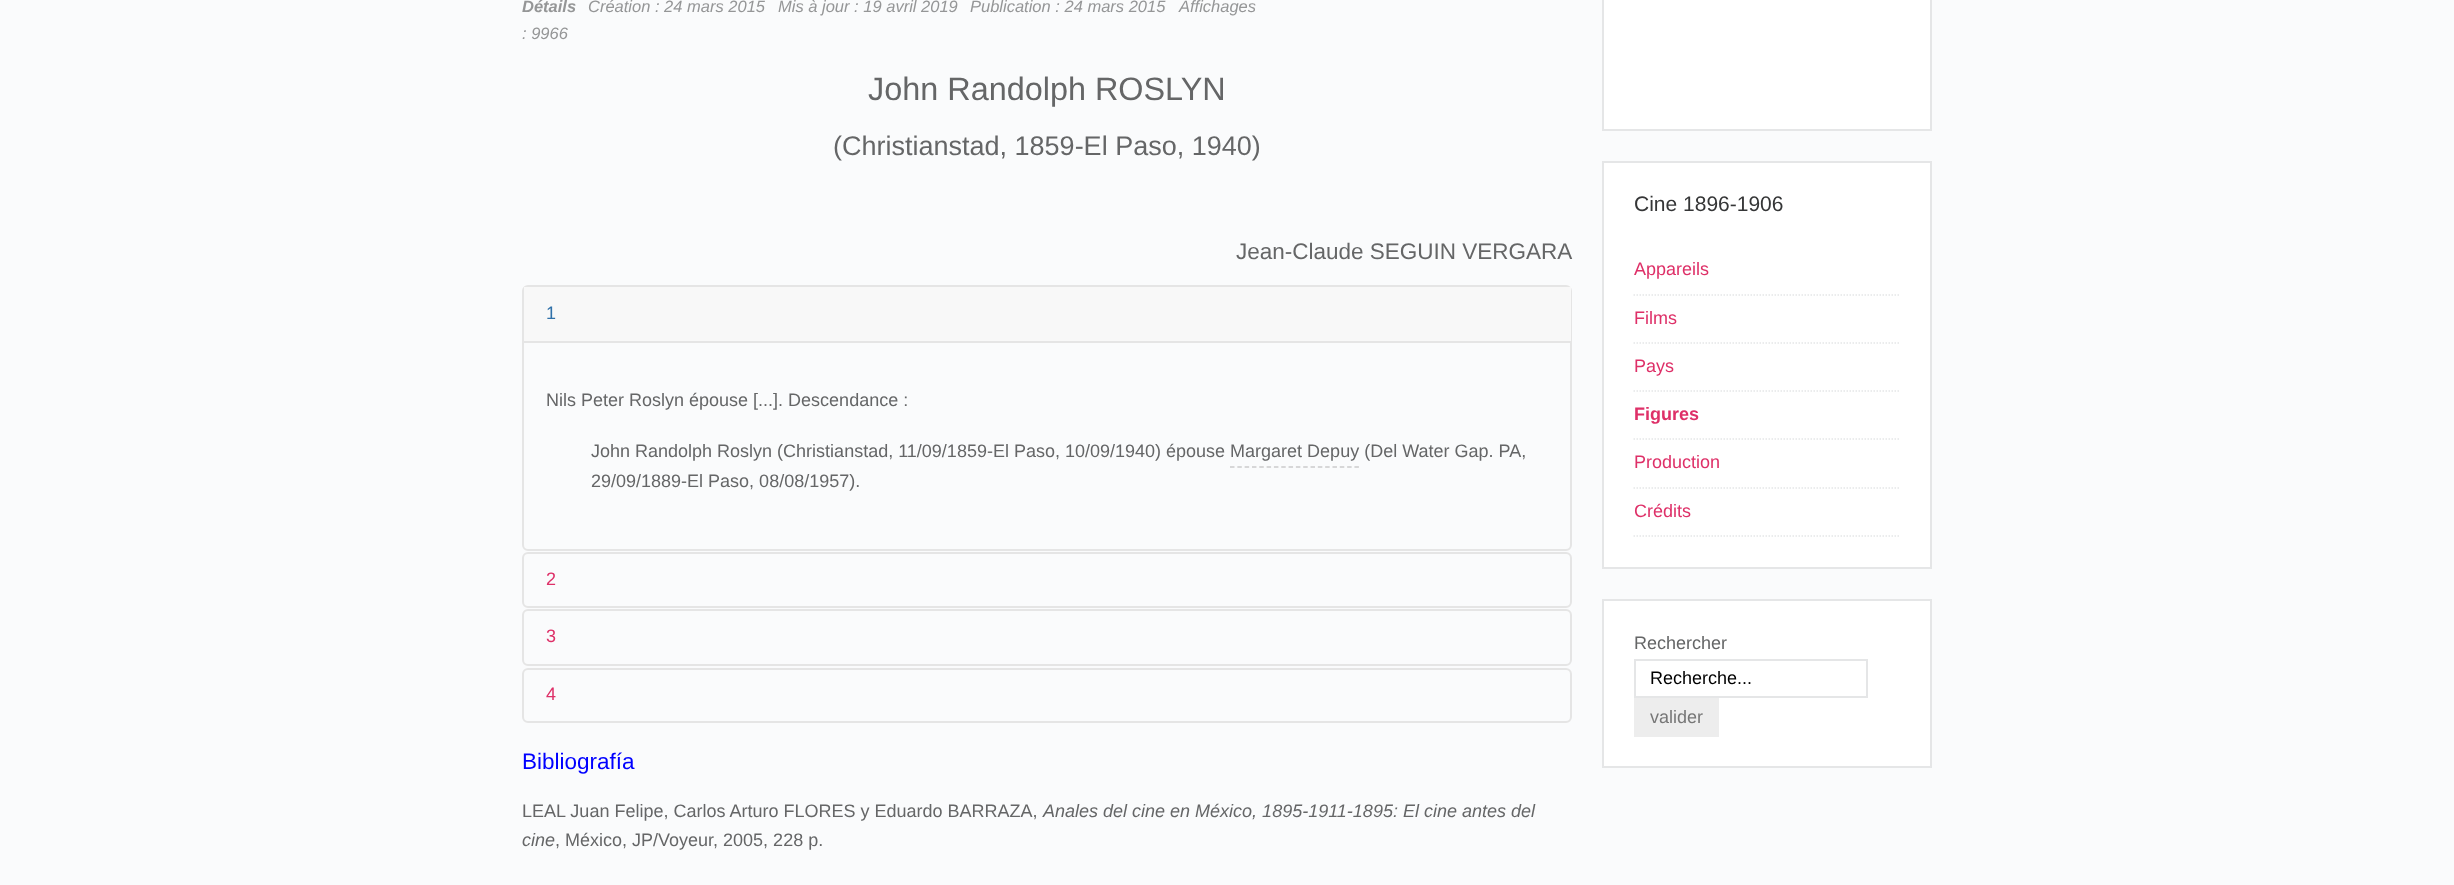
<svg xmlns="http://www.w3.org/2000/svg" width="2454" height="885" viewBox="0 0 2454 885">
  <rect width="100%" height="100%" fill="#fafbfc"/>
  <text x="522" y="12" font-family="Liberation Sans" font-size="16.5" font-weight="bold" font-style="italic" fill="#959697">Détails</text>
  <text x="588" y="12" font-family="Liberation Sans" font-size="16.5" font-style="italic" fill="#959697">Création : 24 mars 2015</text>
  <text x="778" y="12" font-family="Liberation Sans" font-size="16.5" font-style="italic" fill="#959697">Mis à jour : 19 avril 2019</text>
  <text x="970" y="12" font-family="Liberation Sans" font-size="16.5" font-style="italic" fill="#959697">Publication : 24 mars 2015</text>
  <text x="1179" y="12" font-family="Liberation Sans" font-size="16.5" font-style="italic" fill="#959697">Affichages</text>
  <text x="522" y="39" font-family="Liberation Sans" font-size="16.5" font-style="italic" fill="#959697">: 9966</text>
  <text x="868" y="100" font-family="Liberation Sans" font-size="32.4" fill="#656667">John Randolph ROSLYN</text>
  <text x="833" y="155" font-family="Liberation Sans" font-size="27" fill="#656667">(Christianstad, 1859-El Paso, 1940)</text>
  <text x="1236" y="259" font-family="Liberation Sans" font-size="22.5" fill="#656667">Jean-Claude SEGUIN VERGARA</text>
  <rect x="523" y="286" width="1048" height="264" rx="5" fill="none" stroke="#e5e5e5" stroke-width="2"/>
  <rect x="524" y="287" width="1047" height="54" fill="#f8f8f8"/>
  <text x="546" y="319" font-family="Liberation Sans" font-size="18" fill="#3071a9">1</text>
  <rect x="524" y="341" width="1047" height="2" fill="#e5e5e5"/>
  <text x="546" y="406" font-family="Liberation Sans" font-size="18" fill="#656667">Nils Peter Roslyn épouse [...]. Descendance :</text>
  <text x="591" y="457" font-family="Liberation Sans" font-size="18" fill="#656667">John Randolph Roslyn (Christianstad, 11/09/1859-El Paso, 10/09/1940) épouse Margaret Depuy (Del Water Gap. PA,</text>
  <path d="M1230 467H1359" fill="none" stroke="#cccccc" stroke-width="1.5" stroke-dasharray="4.5 2.82"/>
  <text x="591" y="487" font-family="Liberation Sans" font-size="18" fill="#656667">29/09/1889-El Paso, 08/08/1957).</text>
  <rect x="523" y="553" width="1048" height="54" rx="5" fill="none" stroke="#e5e5e5" stroke-width="2"/>
  <text x="546" y="585" font-family="Liberation Sans" font-size="18" fill="#de3068">2</text>
  <rect x="523" y="610" width="1048" height="55" rx="5" fill="none" stroke="#e5e5e5" stroke-width="2"/>
  <text x="546" y="642" font-family="Liberation Sans" font-size="18" fill="#de3068">3</text>
  <rect x="523" y="669" width="1048" height="53" rx="5" fill="none" stroke="#e5e5e5" stroke-width="2"/>
  <text x="546" y="700" font-family="Liberation Sans" font-size="18" fill="#de3068">4</text>
  <text x="522" y="769" font-family="Liberation Sans" font-size="22.5" fill="#0000ff">Bibliografía</text>
  <text x="522" y="817" font-family="Liberation Sans" font-size="18" fill="#656667">LEAL Juan Felipe, Carlos Arturo FLORES y Eduardo BARRAZA,</text>
  <text x="1043" y="817" font-family="Liberation Sans" font-size="18" font-style="italic" fill="#656667">Anales del cine en México, 1895-1911-1895: El cine antes del</text>
  <text x="522" y="846" font-family="Liberation Sans" font-size="18" font-style="italic" fill="#656667">cine</text>
  <text x="555" y="846" font-family="Liberation Sans" font-size="18" fill="#656667">, México, JP/Voyeur, 2005, 228 p.</text>
  <rect x="1603" y="-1" width="328" height="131" fill="#ffffff" stroke="#e5e6e7" stroke-width="2"/>
  <rect x="1603" y="162" width="328" height="406" fill="#ffffff" stroke="#e5e6e7" stroke-width="2"/>
  <text x="1634" y="211" font-family="Liberation Sans" font-size="21" fill="#353637">Cine 1896-1906</text>
  <path d="M1633.5 295H1900.5" fill="none" stroke="#e5e6e7" stroke-width="1.5" stroke-dasharray="1.5 1.5"/>
  <text x="1634" y="275" font-family="Liberation Sans" font-size="18" fill="#de3068">Appareils</text>
  <path d="M1633.5 343H1900.5" fill="none" stroke="#e5e6e7" stroke-width="1.5" stroke-dasharray="1.5 1.5"/>
  <text x="1634" y="324" font-family="Liberation Sans" font-size="18" fill="#de3068">Films</text>
  <path d="M1633.5 391H1900.5" fill="none" stroke="#e5e6e7" stroke-width="1.5" stroke-dasharray="1.5 1.5"/>
  <text x="1634" y="372" font-family="Liberation Sans" font-size="18" fill="#de3068">Pays</text>
  <path d="M1633.5 439H1900.5" fill="none" stroke="#e5e6e7" stroke-width="1.5" stroke-dasharray="1.5 1.5"/>
  <text x="1634" y="420" font-family="Liberation Sans" font-size="18" font-weight="bold" fill="#de3068">Figures</text>
  <path d="M1633.5 488H1900.5" fill="none" stroke="#e5e6e7" stroke-width="1.5" stroke-dasharray="1.5 1.5"/>
  <text x="1634" y="468" font-family="Liberation Sans" font-size="18" fill="#de3068">Production</text>
  <path d="M1633.5 536H1900.5" fill="none" stroke="#e5e6e7" stroke-width="1.5" stroke-dasharray="1.5 1.5"/>
  <text x="1634" y="517" font-family="Liberation Sans" font-size="18" fill="#de3068">Crédits</text>
  <rect x="1603" y="600" width="328" height="167" fill="#ffffff" stroke="#e5e6e7" stroke-width="2"/>
  <text x="1634" y="649" font-family="Liberation Sans" font-size="18" fill="#656667">Rechercher</text>
  <rect x="1635" y="660" width="232" height="37" fill="none" stroke="#e5e6e7" stroke-width="2"/>
  <text x="1650" y="684" font-family="Liberation Sans" font-size="18" fill="#000000">Recherche...</text>
  <rect x="1634" y="698" width="85" height="39" fill="#ededed"/>
  <text x="1650" y="723" font-family="Liberation Sans" font-size="18" fill="#777777">valider</text>
</svg>
